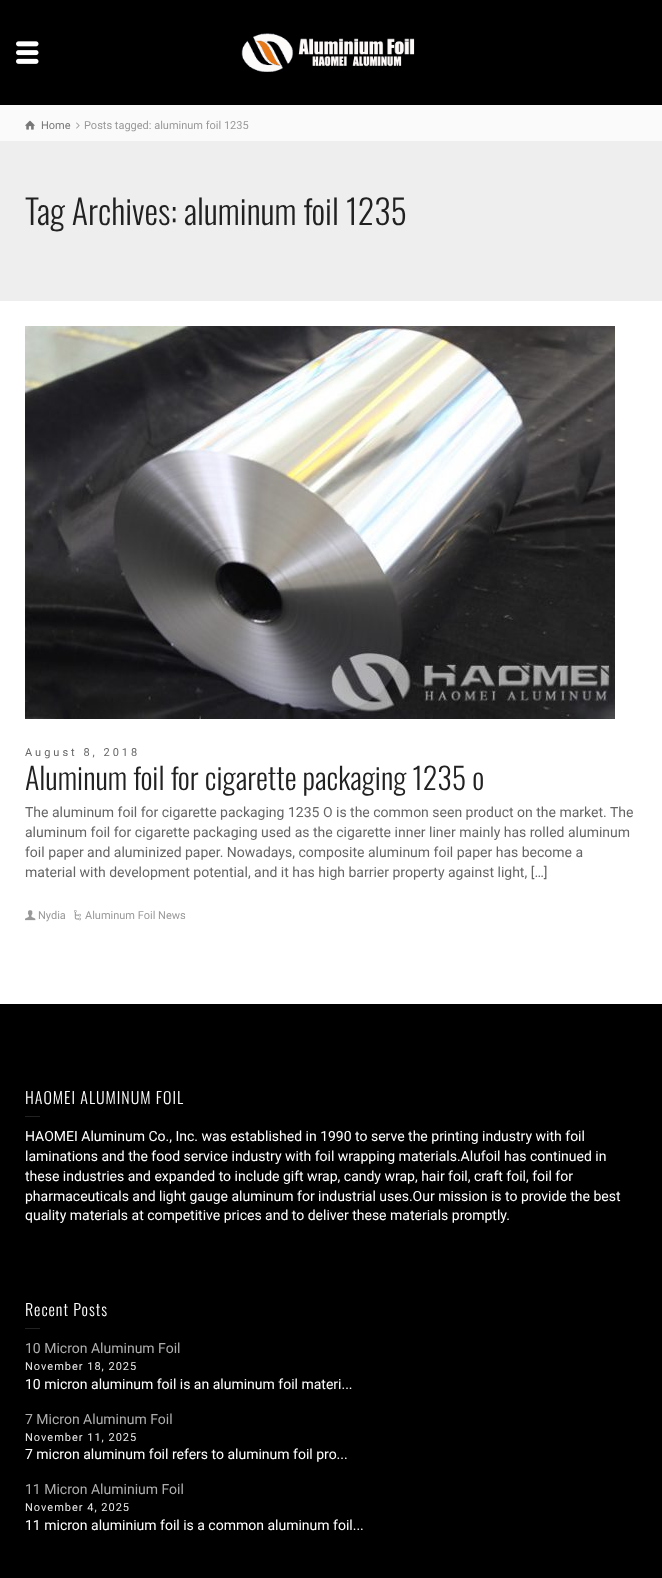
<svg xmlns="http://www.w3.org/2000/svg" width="662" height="1578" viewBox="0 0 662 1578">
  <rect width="100%" height="100%" fill="#000000"/>
  <image x="16" y="41" width="23" height="23" href="img1.png"/>
  <image x="241" y="33" width="174" height="39" href="img2.png"/>
  <rect x="0" y="141" width="662" height="160" fill="#eeeeee"/>
  <rect x="0" y="105" width="662" height="36" fill="#fafafa"/>
  <image x="25" y="120" width="10" height="10" href="img3.png"/>
  <text x="41" y="129" font-family="Roboto" font-size="11" fill="#777777">Home</text>
  <image x="76" y="122" width="4" height="7" href="img4.png"/>
  <text x="84" y="129" font-family="Roboto" font-size="11" fill="#999999">Posts tagged: aluminum foil 1235</text>
  <text x="25" y="225" font-family="Oswald" font-size="34" font-weight="300" fill="#212121">Tag Archives: aluminum foil 1235</text>
  <rect x="0" y="301" width="662" height="703" fill="#ffffff"/>
  <image x="25" y="326" width="590" height="393" href="img5.png"/>
  <text x="25" y="756" font-family="Roboto" font-size="11" letter-spacing="3" fill="#666666">August 8, 2018</text>
  <text x="25" y="790" font-family="Oswald" font-size="30" font-weight="300" fill="#212121">Aluminum foil for cigarette packaging 1235 o</text>
  <text x="25" y="817" font-family="Roboto" font-size="14" fill="#666666">The aluminum foil for cigarette packaging 1235 O is the common seen product on the market. The</text>
  <text x="25" y="837" font-family="Roboto" font-size="14" fill="#666666">aluminum foil for cigarette packaging used as the cigarette inner liner mainly has rolled aluminum</text>
  <text x="25" y="857" font-family="Roboto" font-size="14" fill="#666666">foil paper and aluminized paper. Nowadays, composite aluminum foil paper has become a</text>
  <text x="25" y="877" font-family="Roboto" font-size="14" fill="#666666">material with development potential, and it has high barrier property against light, […]</text>
  <image x="25" y="910" width="11" height="11" href="img6.png"/>
  <text x="38" y="919" font-family="Roboto" font-size="11" fill="#999999">Nydia</text>
  <image x="74" y="910" width="7" height="11" href="img7.png"/>
  <text x="85" y="919" font-family="Roboto" font-size="11" fill="#999999">Aluminum Foil News</text>
  <text x="25" y="1104" font-family="Oswald" font-size="16" font-weight="300" letter-spacing="1" fill="#ffffff">HAOMEI ALUMINUM FOIL</text>
  <rect x="25" y="1116" width="15" height="1" fill="#222222"/>
  <text x="25" y="1141" font-family="Roboto" font-size="14" fill="#ffffff">HAOMEI Aluminum Co., Inc. was established in 1990 to serve the printing industry with foil</text>
  <text x="25" y="1161" font-family="Roboto" font-size="14" fill="#ffffff">laminations and the food service industry with foil wrapping materials.Alufoil has continued in</text>
  <text x="25" y="1181" font-family="Roboto" font-size="14" fill="#ffffff">these industries and expanded to include gift wrap, candy wrap, hair foil, craft foil, foil for</text>
  <text x="25" y="1201" font-family="Roboto" font-size="14" fill="#ffffff">pharmaceuticals and light gauge aluminum for industrial uses.Our mission is to provide the best</text>
  <text x="25" y="1220" font-family="Roboto" font-size="14" fill="#ffffff">quality materials at competitive prices and to deliver these materials promptly.</text>
  <text x="25" y="1316" font-family="Oswald" font-size="16" font-weight="300" letter-spacing="1" fill="#ffffff">Recent Posts</text>
  <rect x="25" y="1328" width="15" height="1" fill="#222222"/>
  <text x="25" y="1353" font-family="Roboto" font-size="14" fill="#aeaeae">10 Micron Aluminum Foil</text>
  <text x="25" y="1370" font-family="Roboto" font-size="11" letter-spacing="1" fill="#eaeaea">November 18, 2025</text>
  <text x="25" y="1389" font-family="Roboto" font-size="14" fill="#ffffff">10 micron aluminum foil is an aluminum foil materi...</text>
  <text x="25" y="1424" font-family="Roboto" font-size="14" fill="#aeaeae">7 Micron Aluminum Foil</text>
  <text x="25" y="1441" font-family="Roboto" font-size="11" letter-spacing="1" fill="#eaeaea">November 11, 2025</text>
  <text x="25" y="1459" font-family="Roboto" font-size="14" fill="#ffffff">7 micron aluminum foil refers to aluminum foil pro...</text>
  <text x="25" y="1494" font-family="Roboto" font-size="14" fill="#aeaeae">11 Micron Aluminium Foil</text>
  <text x="25" y="1511" font-family="Roboto" font-size="11" letter-spacing="1" fill="#eaeaea">November 4, 2025</text>
  <text x="25" y="1530" font-family="Roboto" font-size="14" fill="#ffffff">11 micron aluminium foil is a common aluminum foil...</text>
</svg>
